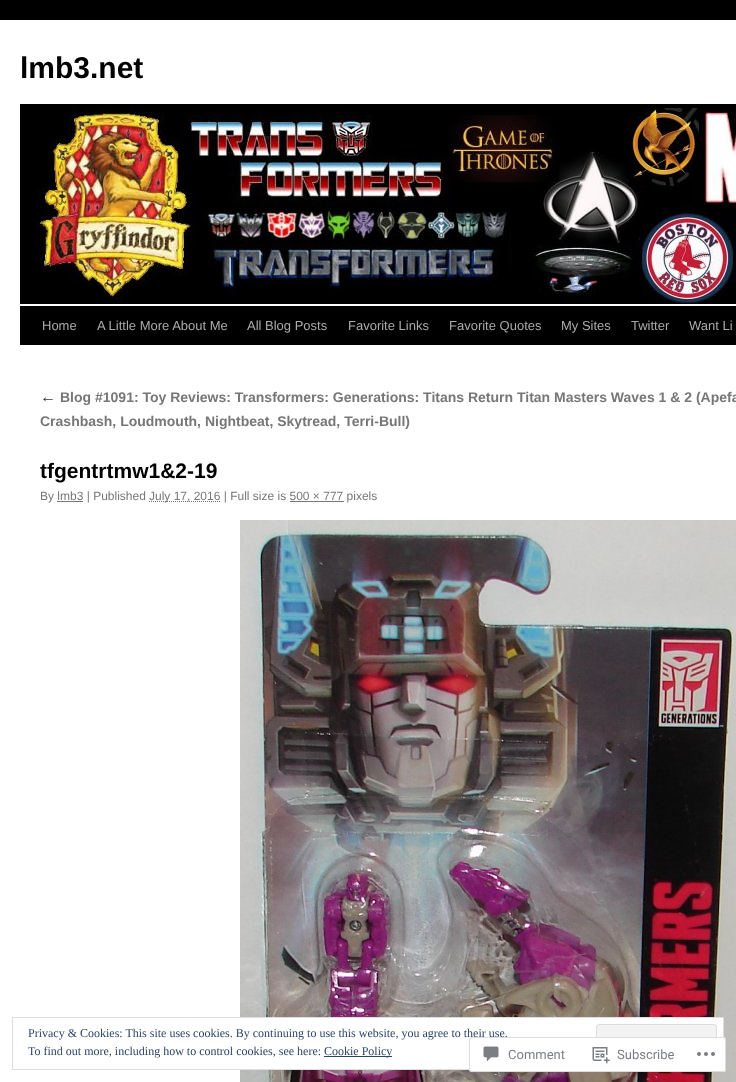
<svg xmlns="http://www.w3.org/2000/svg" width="736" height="1082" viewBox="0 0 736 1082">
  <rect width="100%" height="100%" fill="#000000"/>
  <rect x="0" y="20" width="736" height="1062" fill="#ffffff"/>
  <text x="20" y="78" font-family="Liberation Sans" font-size="30" font-weight="bold" fill="#000000">lmb3.net</text>
  <rect x="20" y="104" width="716" height="4" fill="#000000"/>
  <rect x="20" y="306" width="716" height="39" fill="#000000"/>
  <image x="20" y="108" width="716" height="198" href="img1.png"/>
  <text x="42" y="330" font-family="Liberation Sans" font-size="13" fill="#aaaaaa">Home</text>
  <text x="97" y="330" font-family="Liberation Sans" font-size="13" fill="#aaaaaa">A Little More About Me</text>
  <text x="247" y="330" font-family="Liberation Sans" font-size="13" fill="#aaaaaa">All Blog Posts</text>
  <text x="348" y="330" font-family="Liberation Sans" font-size="13" fill="#aaaaaa">Favorite Links</text>
  <text x="449" y="330" font-family="Liberation Sans" font-size="13" fill="#aaaaaa">Favorite Quotes</text>
  <text x="561" y="330" font-family="Liberation Sans" font-size="13" fill="#aaaaaa">My Sites</text>
  <text x="631" y="330" font-family="Liberation Sans" font-size="13" fill="#aaaaaa">Twitter</text>
  <text x="689" y="330" font-family="Liberation Sans" font-size="13" fill="#aaaaaa">Want Li</text>
  <text x="40" y="402" font-family="Liberation Serif" font-size="16" font-style="italic" fill="#333333">←</text>
  <text x="60" y="402" font-family="Liberation Sans" font-size="14" font-weight="bold" fill="#777777">Blog #1091: Toy Reviews: Transformers: Generations: Titans Return Titan Masters Waves 1 &amp; 2 (Apefa</text>
  <text x="40" y="426" font-family="Liberation Sans" font-size="14" font-weight="bold" fill="#777777">Crashbash, Loudmouth, Nightbeat, Skytread, Terri-Bull)</text>
  <text x="40" y="478" font-family="Liberation Sans" font-size="21" font-weight="bold" fill="#000000">tfgentrtmw1&amp;2-19</text>
  <text x="40" y="500" font-family="Liberation Sans" font-size="12" fill="#777777">By lmb3 | Published</text>
  <path d="M149 501.5H220.5" fill="none" stroke="#777777" stroke-dasharray="1 1"/>
  <text x="149" y="500" font-family="Liberation Sans" font-size="12" fill="#777777">July 17, 2016 | Full size is 500 × 777 pixels</text>
  <rect x="57" y="501" width="26" height="1" fill="#777777"/>
  <rect x="290" y="501" width="54" height="1" fill="#777777"/>
  <image x="240" y="520" width="496" height="562" href="img2.png"/>
  <rect x="240" y="1018" width="483" height="51" fill="#ffffff"/>
  <rect x="12.5" y="1017.5" width="711" height="52" fill="none" stroke="#dedede"/>
  <text x="28" y="1037" font-family="Liberation Serif" font-size="12" fill="#2e4467">Privacy &amp; Cookies: This site uses cookies. By continuing to use this website, you agree to their use.</text>
  <rect x="596.5" y="1024.5" width="120" height="38" rx="2.5" fill="#f3f3f3" stroke="#dedede"/>
  <text x="28" y="1055" font-family="Liberation Serif" font-size="12" fill="#2e4467">To find out more, including how to control cookies, see here:</text>
  <rect x="324" y="1056" width="68" height="1" fill="#2e4467"/>
  <text x="324" y="1055" font-family="Liberation Serif" font-size="12" fill="#2e4467">Cookie Policy</text>
  <rect x="469" y="1037" width="257" height="35" rx="3" fill="#ffffff" fill-opacity="0.98"/>
  <rect x="469.5" y="1037.5" width="256" height="34" rx="2.5" fill="none" stroke="#dcdcde" stroke-opacity="0.98"/>
  <image x="483" y="1046" width="16" height="16" href="img3.png"/>
  <text x="508" y="1059" font-family="Roboto" font-size="13" fill="#7b7f85">Comment</text>
  <image x="592" y="1047" width="18" height="17" href="img4.png"/>
  <text x="617" y="1059" font-family="Roboto" font-size="13" fill="#7b7f85">Subscribe</text>
  <image x="697" y="1052" width="18" height="4" href="img5.png"/>
</svg>
